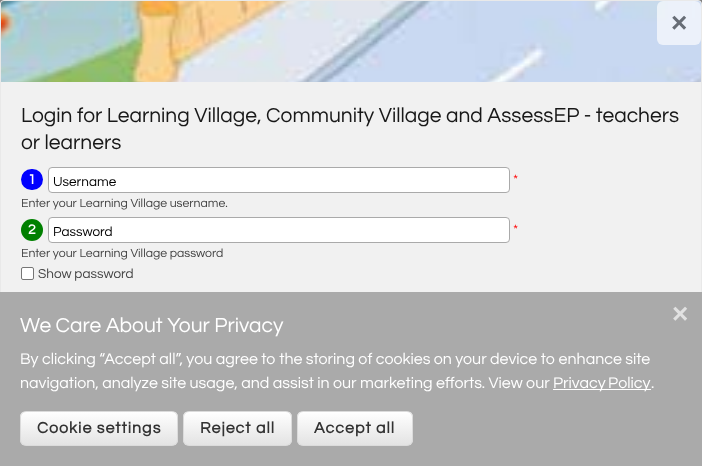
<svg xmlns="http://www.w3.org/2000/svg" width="702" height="466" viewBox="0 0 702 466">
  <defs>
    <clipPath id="clip1"><rect x="20" y="411" width="158" height="35" rx="6"/></clipPath>
    <linearGradient id="g1" gradientUnits="userSpaceOnUse" x1="99" y1="412" x2="99" y2="445"><stop offset="0" stop-color="#ffffff"/><stop offset="1" stop-color="#e3e3e3"/></linearGradient>
    <clipPath id="clip2"><rect x="183" y="411" width="109" height="35" rx="6"/></clipPath>
    <linearGradient id="g2" gradientUnits="userSpaceOnUse" x1="238" y1="412" x2="238" y2="445"><stop offset="0" stop-color="#ffffff"/><stop offset="1" stop-color="#e3e3e3"/></linearGradient>
    <clipPath id="clip3"><rect x="297" y="411" width="116" height="35" rx="6"/></clipPath>
    <linearGradient id="g3" gradientUnits="userSpaceOnUse" x1="355" y1="412" x2="355" y2="445"><stop offset="0" stop-color="#ffffff"/><stop offset="1" stop-color="#e3e3e3"/></linearGradient>
  </defs>
  <rect width="100%" height="100%" fill="#808080"/>
  <rect x="0.5" y="0.5" width="701" height="465" rx="3.5" fill="#f1f1f1" stroke="#e9e9e9"/>
  <image x="1" y="1" width="700" height="81" href="img1.png"/>
  <rect x="657" y="1" width="44" height="44" rx="6" fill="#ffffff" fill-opacity="0.65"/>
  <text x="671" y="32" font-family="Liberation Sans" font-size="28" font-weight="bold" fill="#676d76">×</text>
  <text x="21" y="122" font-family="Questrial" font-size="21" fill="#181818">Login for Learning Village, Community Village and AssessEP - teachers</text>
  <text x="21" y="149" font-family="Questrial" font-size="21" fill="#181818">or learners</text>
  <rect x="21" y="169" width="22" height="21" rx="10.5" fill="#0000ff"/>
  <text x="28" y="184" font-family="Questrial" font-size="14" font-weight="bold" fill="#ffffff">1</text>
  <text x="513" y="184" font-family="Questrial" font-size="14" fill="#ff0000">*</text>
  <rect x="48.5" y="167.5" width="461" height="25" rx="3.5" fill="#ffffff" stroke="#aaaaaa"/>
  <text x="53" y="186" font-family="Questrial" font-size="13.5" fill="#000000">Username</text>
  <text x="21" y="207" font-family="Questrial" font-size="12.25" fill="#444444">Enter your Learning Village username.</text>
  <circle cx="32" cy="230" r="11" fill="#008000"/>
  <text x="28" y="234" font-family="Questrial" font-size="14" font-weight="bold" fill="#ffffff">2</text>
  <rect x="48.5" y="217.5" width="461" height="25" rx="3.5" fill="#ffffff" stroke="#aaaaaa"/>
  <text x="53" y="236" font-family="Questrial" font-size="13.5" fill="#000000">Password</text>
  <text x="513" y="234" font-family="Questrial" font-size="14" fill="#ff0000">*</text>
  <text x="21" y="257" font-family="Questrial" font-size="12.25" fill="#444444">Enter your Learning Village password</text>
  <rect x="21.5" y="267.5" width="12" height="12" rx="1.5" fill="#ffffff" stroke="#767676"/>
  <text x="38" y="278" font-family="Questrial" font-size="13.5" fill="#444444">Show password</text>
  <rect x="0" y="292" width="702" height="174" fill="#aaaaaa"/>
  <text x="672" y="323" font-family="Liberation Sans" font-size="28" font-weight="bold" fill="#e1e1e1">×</text>
  <text x="20" y="332" font-family="Questrial" font-size="21" fill="#ffffff">We Care About Your Privacy</text>
  <text x="20" y="364" font-family="Questrial" font-size="16" fill="#ffffff">By clicking “Accept all”, you agree to the storing of cookies on your device to enhance site</text>
  <text x="20" y="388" font-family="Questrial" font-size="16" fill="#ffffff">navigation, analyze site usage, and assist in our marketing efforts. View our</text>
  <rect x="553" y="389" width="98" height="1" fill="#ffffff"/>
  <text x="553" y="388" word-spacing="-1" font-family="Questrial" font-size="16" fill="#ffffff">Privacy Policy</text>
  <text x="651" y="388" font-family="Questrial" font-size="16" fill="#ffffff">.</text>
  <g clip-path="url(#clip1)">
    <rect x="20" y="412" width="158" height="33" fill="url(#g1)"/>
  </g>
  <rect x="20.5" y="411.5" width="157" height="34" rx="5.5" fill="none" stroke="#dbdbdb"/>
  <text x="37" y="433" font-family="Questrial" font-size="16" font-weight="bold" letter-spacing="1" fill="#333333">Cookie settings</text>
  <g clip-path="url(#clip2)">
    <rect x="183" y="412" width="109" height="33" fill="url(#g2)"/>
  </g>
  <path d="M189 413H286C289 413 291 415 291 418C291 408 275 412 270 412H205C200 412 184 408 184 418C184 415 186 413 189 413Z" fill="#ffffff"/>
  <rect x="183.5" y="411.5" width="108" height="34" rx="5.5" fill="none" stroke="#dbdbdb"/>
  <text x="200" y="433" font-family="Questrial" font-size="16" font-weight="bold" letter-spacing="1" fill="#333333">Reject all</text>
  <g clip-path="url(#clip3)">
    <rect x="297" y="412" width="116" height="33" fill="url(#g3)"/>
  </g>
  <path d="M303 413H407C410 413 412 415 412 418C412 408 394 412 390 412H320C316 412 298 408 298 418C298 415 300 413 303 413Z" fill="#ffffff"/>
  <rect x="297.5" y="411.5" width="115" height="34" rx="5.5" fill="none" stroke="#dbdbdb"/>
  <text x="314" y="433" font-family="Questrial" font-size="16" font-weight="bold" letter-spacing="1" fill="#333333">Accept all</text>
</svg>
